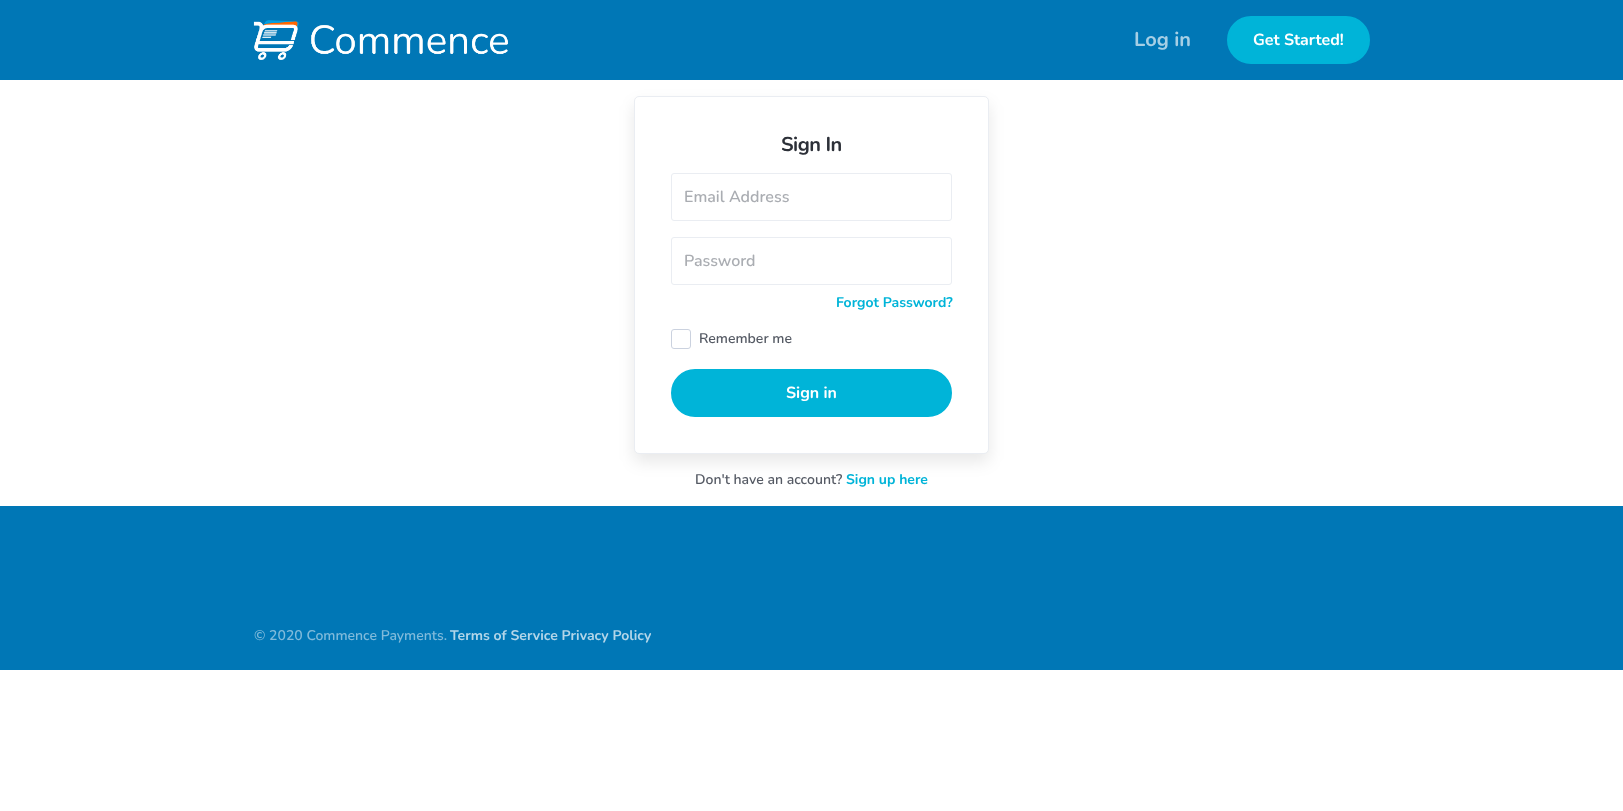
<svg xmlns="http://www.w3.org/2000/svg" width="1623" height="811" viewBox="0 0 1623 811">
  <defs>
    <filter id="blur1" x="-50%" y="-200%" width="200%" height="500%"><feGaussianBlur stdDeviation="8"/></filter>
  </defs>
  <rect width="100%" height="100%" fill="#ffffff"/>
  <rect x="0" y="0" width="1623" height="80" fill="#0077b6"/>
  <image x="253" y="20" width="255" height="40" href="img1.png"/>
  <text x="1134" y="46" font-family="Nunito" font-size="20" font-weight="bold" fill="#a6cfe5">Log in</text>
  <rect x="1228" y="17" width="141" height="46" rx="23" fill="#00b4d8" stroke="#00b4d8" stroke-width="2"/>
  <text x="1253" y="45" font-family="Nunito" font-size="16" font-weight="bold" fill="#ffffff">Get Started!</text>
  <rect x="634" y="104" width="355" height="358" rx="5" fill="#000000" fill-opacity="0.09" filter="url(#blur1)"/>
  <rect x="634.5" y="96.5" width="354" height="357" rx="4.5" fill="#ffffff" stroke="#eaedf2"/>
  <text x="781" y="151" font-family="Nunito" font-size="20" font-weight="bold" letter-spacing="-0.5" fill="#2c3038">Sign In</text>
  <rect x="671.5" y="173.5" width="280" height="47" rx="2.5" fill="none" stroke="#eaedf2"/>
  <text x="684" y="202" font-family="Nunito" font-size="16" font-weight="600" fill="#aaadb2">Email Address</text>
  <rect x="671.5" y="237.5" width="280" height="47" rx="2.5" fill="none" stroke="#eaedf2"/>
  <text x="684" y="266" font-family="Nunito" font-size="16" font-weight="600" fill="#aaadb2">Password</text>
  <text x="836" y="307" font-family="Nunito" font-size="14" font-weight="bold" fill="#00b4d8">Forgot Password?</text>
  <rect x="671.5" y="329.5" width="19" height="19" rx="2.5" fill="none" stroke="#cbd2df"/>
  <text x="699" y="343" font-family="Nunito" font-size="14" font-weight="600" fill="#555a64">Remember me</text>
  <rect x="672" y="370" width="279" height="46" rx="23" fill="#00b4d8" stroke="#00b4d8" stroke-width="2"/>
  <text x="786" y="398" font-family="Nunito" font-size="16" font-weight="bold" fill="#ffffff">Sign in</text>
  <text x="695" y="484" font-family="Nunito" font-size="14" font-weight="600" fill="#555a64">Don't have an account?</text>
  <text x="846" y="484" font-family="Nunito" font-size="14" font-weight="bold" fill="#00b4d8">Sign up here</text>
  <rect x="0" y="506" width="1623" height="164" fill="#0077b6"/>
  <text x="254" y="640" font-family="Nunito" font-size="14" font-weight="600" fill="#80bbdb">© 2020 Commence Payments.</text>
  <text x="450" y="640" font-family="Nunito" font-size="14" font-weight="bold" fill="#b3d6e9">Terms of Service Privacy Policy</text>
</svg>
